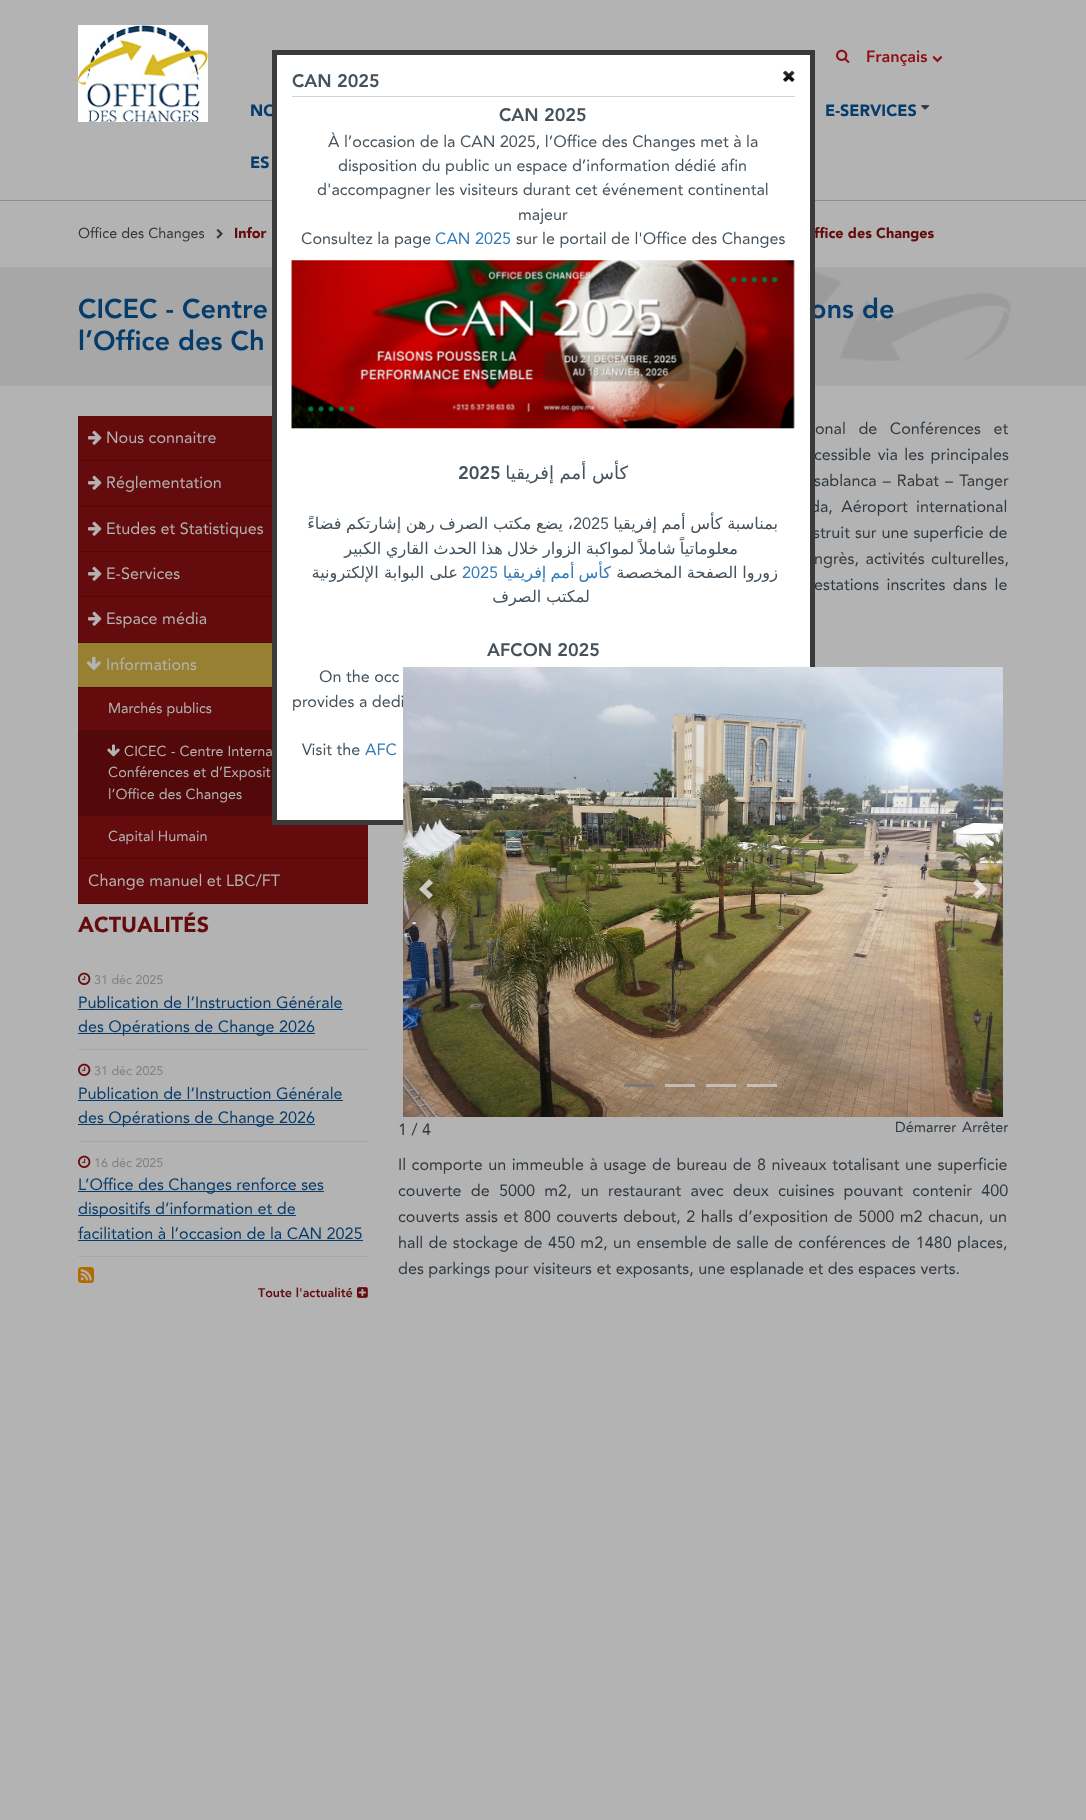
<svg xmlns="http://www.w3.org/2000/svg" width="1086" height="1820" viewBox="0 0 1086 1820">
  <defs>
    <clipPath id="clip1"><rect x="398" y="1084" width="610" height="3"/></clipPath>
  </defs>
  <rect width="100%" height="100%" fill="#b3b3b3"/>
  <rect x="0" y="200" width="1086" height="1" fill="#8a8f96"/>
  <image x="78" y="25" width="130" height="97" href="img1.png"/>
  <image x="836" y="49" width="14" height="14" href="img2.png"/>
  <text x="866" y="62" font-family="'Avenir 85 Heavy'" font-size="16.2" font-weight="900" fill="#8f1013">Français</text>
  <image x="932" y="56" width="11" height="7" href="img3.png"/>
  <text x="250" y="116" font-family="Avenir" font-size="16.2" font-weight="900" fill="#063c6c">NO</text>
  <text x="825" y="116" font-family="Avenir" font-size="16.2" font-weight="900" fill="#063c6c">E-SERVICES</text>
  <image x="921" y="105" width="9" height="5" href="img4.png"/>
  <text x="250" y="168" font-family="Avenir" font-size="16.2" font-weight="900" fill="#063c6c">ES</text>
  <text x="78" y="238" font-family="Avenir" font-size="14.4" fill="#373737">Office des Changes</text>
  <image x="216" y="229" width="7" height="10" href="img5.png"/>
  <text x="234" y="238" font-family="Avenir" font-size="14.4" font-weight="900" fill="#640b0d">Infor</text>
  <text x="814" y="238" font-family="Avenir" font-size="14.4" font-weight="900" fill="#640b0d">ffice des Changes</text>
  <rect x="0" y="267" width="1086" height="119" fill="#a7a7a7"/>
  <image x="815" y="271" width="197" height="92" href="img6.png"/>
  <text x="78" y="318" font-family="'Avenir 85 Heavy'" font-size="27" font-weight="900" fill="#063c6c">CICEC - Centre</text>
  <text x="810" y="318" font-family="'Avenir 85 Heavy'" font-size="27" font-weight="900" fill="#063c6c">ons de</text>
  <text x="78" y="350" font-family="'Avenir 85 Heavy'" font-size="27" font-weight="900" fill="#063c6c">l’Office des Ch</text>
  <rect x="78" y="416" width="194" height="44" fill="#640b0d"/>
  <rect x="78" y="460" width="194" height="1" fill="#53080a"/>
  <image x="88" y="430" width="14" height="15" href="img7.png"/>
  <text x="106" y="443" font-family="Avenir" font-size="16.2" fill="#b3b3b3">Nous connaitre</text>
  <rect x="78" y="461" width="194" height="45" fill="#640b0d"/>
  <rect x="78" y="506" width="194" height="1" fill="#53080a"/>
  <image x="88" y="475" width="14" height="15" href="img7.png"/>
  <text x="106" y="488" font-family="Avenir" font-size="16.2" fill="#b3b3b3">Réglementation</text>
  <rect x="78" y="507" width="194" height="44" fill="#640b0d"/>
  <rect x="78" y="551" width="194" height="1" fill="#53080a"/>
  <image x="88" y="521" width="14" height="15" href="img7.png"/>
  <text x="106" y="534" font-family="Avenir" font-size="16.2" fill="#b3b3b3">Etudes et Statistiques</text>
  <rect x="78" y="552" width="194" height="44" fill="#640b0d"/>
  <rect x="78" y="596" width="194" height="1" fill="#53080a"/>
  <image x="88" y="566" width="14" height="15" href="img7.png"/>
  <text x="106" y="579" font-family="Avenir" font-size="16.2" fill="#b3b3b3">E-Services</text>
  <rect x="78" y="597" width="194" height="45" fill="#640b0d"/>
  <rect x="78" y="642" width="194" height="1" fill="#53080a"/>
  <image x="88" y="611" width="14" height="15" href="img7.png"/>
  <text x="106" y="624" font-family="Avenir" font-size="16.2" fill="#b3b3b3">Espace média</text>
  <rect x="78" y="643" width="194" height="44" fill="#988032"/>
  <rect x="78" y="687" width="194" height="1" fill="#53080a"/>
  <image x="86" y="656" width="15" height="15" href="img8.png"/>
  <text x="106" y="670" font-family="Avenir" font-size="16.2" fill="#b3b3b3">Informations</text>
  <rect x="78" y="688" width="194" height="42" fill="#640b0d"/>
  <rect x="78" y="730" width="194" height="1" fill="#53080a"/>
  <text x="108" y="713" font-family="Avenir" font-size="14.4" fill="#b3b3b3">Marchés publics</text>
  <rect x="78" y="731" width="194" height="85" fill="#530809"/>
  <image x="107" y="744" width="13" height="13" href="img9.png"/>
  <text x="124" y="756" font-family="Avenir" font-size="14.4" fill="#b3b3b3">CICEC - Centre Interna</text>
  <text x="108" y="777" font-family="Avenir" font-size="14.4" fill="#b3b3b3">Conférences et d’Exposit</text>
  <text x="108" y="799" font-family="Avenir" font-size="14.4" fill="#b3b3b3">l’Office des Changes</text>
  <rect x="78" y="816" width="290" height="42" fill="#640b0d"/>
  <rect x="78" y="858" width="290" height="1" fill="#53080a"/>
  <text x="108" y="841" font-family="Avenir" font-size="14.4" fill="#b3b3b3">Capital Humain</text>
  <rect x="78" y="859" width="290" height="44" fill="#640b0d"/>
  <rect x="78" y="903" width="290" height="1" fill="#53080a"/>
  <text x="88" y="886" font-family="Avenir" font-size="16.2" fill="#b3b3b3">Change manuel et LBC/FT</text>
  <text x="78" y="932" font-family="Avenir" font-size="21.5" font-weight="900" fill="#640b0d">ACTUALITÉS</text>
  <rect x="78" y="1049" width="290" height="1" fill="#a7a7a7"/>
  <image x="78" y="972" width="13" height="13" href="img10.png"/>
  <text x="94" y="984" font-family="Avenir" font-size="12.5" fill="#7f7f7f">31 déc 2025</text>
  <text x="78" y="1008" font-family="Avenir" font-size="16.2" fill="#063c6c">Publication de l’Instruction Générale</text>
  <rect x="78" y="1009" width="265" height="1" fill="#063c6c"/>
  <rect x="78" y="1033" width="237" height="1" fill="#063c6c"/>
  <text x="78" y="1032" font-family="Avenir" font-size="16.2" fill="#063c6c">des Opérations de Change 2026</text>
  <rect x="78" y="1141" width="290" height="1" fill="#a7a7a7"/>
  <image x="78" y="1063" width="13" height="13" href="img10.png"/>
  <text x="94" y="1075" font-family="Avenir" font-size="12.5" fill="#7f7f7f">31 déc 2025</text>
  <text x="78" y="1099" font-family="Avenir" font-size="16.2" fill="#063c6c">Publication de l’Instruction Générale</text>
  <rect x="78" y="1100" width="265" height="1" fill="#063c6c"/>
  <rect x="78" y="1124" width="237" height="1" fill="#063c6c"/>
  <text x="78" y="1123" font-family="Avenir" font-size="16.2" fill="#063c6c">des Opérations de Change 2026</text>
  <rect x="78" y="1256" width="290" height="1" fill="#a7a7a7"/>
  <image x="78" y="1155" width="13" height="13" href="img10.png"/>
  <text x="94" y="1167" font-family="Avenir" font-size="12.5" fill="#7f7f7f">16 déc 2025</text>
  <rect x="78" y="1191" width="246" height="1" fill="#063c6c"/>
  <text x="78" y="1190" font-family="Avenir" font-size="16.2" fill="#063c6c">L’Office des Changes renforce ses</text>
  <rect x="78" y="1215" width="218" height="1" fill="#063c6c"/>
  <text x="78" y="1214" font-family="Avenir" font-size="16.2" fill="#063c6c">dispositifs d’information et de</text>
  <text x="78" y="1239" font-family="Avenir" font-size="16.2" fill="#063c6c">facilitation à l’occasion de la CAN 2025</text>
  <rect x="78" y="1240" width="285" height="1" fill="#063c6c"/>
  <image x="78" y="1267" width="16" height="16" href="img11.png"/>
  <text x="258" y="1297" font-family="'Avenir 85 Heavy'" font-size="12.5" font-weight="900" fill="#640b0d">Toute l'actualité</text>
  <image x="357" y="1287" width="11" height="11" href="img12.png"/>
  <text x="815" y="434" word-spacing="8" font-family="Avenir" font-size="16.2" fill="#303940">onal de Conférences et</text>
  <text x="814" y="460" word-spacing="2" font-family="Avenir" font-size="16.2" fill="#303940">cessible via les principales</text>
  <text x="814" y="486" word-spacing="1.5" font-family="Avenir" font-size="16.2" fill="#303940">sablanca – Rabat – Tanger</text>
  <text x="810" y="512" word-spacing="4" font-family="Avenir" font-size="16.2" fill="#303940">da, Aéroport international</text>
  <text x="813" y="538" word-spacing="0.5" font-family="Avenir" font-size="16.2" fill="#303940">struit sur une superficie de</text>
  <text x="814" y="564" word-spacing="2" font-family="Avenir" font-size="16.2" fill="#303940">ngrès, activités culturelles,</text>
  <text x="814" y="590" word-spacing="3" font-family="Avenir" font-size="16.2" fill="#303940">estations inscrites dans le</text>
  <rect x="274.5" y="52.5" width="538" height="770" fill="#ffffff" stroke="#3a3a3a" stroke-width="5"/>
  <text x="292" y="707" font-family="Avenir" font-size="16.2" fill="#45525c">provides a dedi</text>
  <image x="403" y="667" width="600" height="450" href="img13.png"/>
  <path d="M429 879L419 889L429 899L433 895L426.5 889L433 883Z" fill="#ffffff" fill-opacity="0.7"/>
  <path d="M977 879L973 883L979.5 889L973 895L977 899L987 889Z" fill="#ffffff" fill-opacity="0.7"/>
  <rect x="624" y="1084" width="30" height="3" fill="#ffffff" fill-opacity="0.35"/>
  <g clip-path="url(#clip1)">
    <rect x="625.5" y="1085.5" width="27" height="21" fill="none" stroke="#616161" stroke-opacity="0.7" stroke-width="3"/>
  </g>
  <rect x="665" y="1084" width="30" height="3" fill="#ffffff" fill-opacity="0.35"/>
  <g clip-path="url(#clip1)">
    <rect x="666.5" y="1085.5" width="27" height="21" fill="none" stroke="#cccccc" stroke-opacity="0.49" stroke-width="3"/>
  </g>
  <rect x="706" y="1084" width="30" height="3" fill="#ffffff" fill-opacity="0.35"/>
  <g clip-path="url(#clip1)">
    <rect x="707.5" y="1085.5" width="27" height="21" fill="none" stroke="#cccccc" stroke-opacity="0.49" stroke-width="3"/>
  </g>
  <rect x="747" y="1084" width="30" height="3" fill="#ffffff" fill-opacity="0.35"/>
  <g clip-path="url(#clip1)">
    <rect x="748.5" y="1085.5" width="27" height="21" fill="none" stroke="#cccccc" stroke-opacity="0.49" stroke-width="3"/>
  </g>
  <text x="398" y="1135" font-family="Avenir" font-size="16.2" fill="#303940">1 / 4</text>
  <text x="895" y="1132" font-family="Avenir" font-size="14.4" fill="#303940">Démarrer</text>
  <text x="962" y="1132" font-family="Avenir" font-size="14.4" fill="#303940">Arrêter</text>
  <text x="398" y="1170" word-spacing="1" font-family="Avenir" font-size="16.2" fill="#303940">Il comporte un immeuble à usage de bureau de 8 niveaux totalisant une superficie</text>
  <text x="398" y="1196" word-spacing="4.75" font-family="Avenir" font-size="16.2" fill="#303940">couverte de 5000 m2, un restaurant avec deux cuisines pouvant contenir 400</text>
  <text x="398" y="1222" word-spacing="1" font-family="Avenir" font-size="16.2" fill="#303940">couverts assis et 800 couverts debout, 2 halls d’exposition de 5000 m2 chacun, un</text>
  <text x="398" y="1248" word-spacing="0.9" font-family="Avenir" font-size="16.2" fill="#303940">hall de stockage de 450 m2, un ensemble de salle de conférences de 1480 places,</text>
  <text x="398" y="1274" font-family="Avenir" font-size="16.2" fill="#303940">des parkings pour visiteurs et exposants, une esplanade et des espaces verts.</text>
  <rect x="292" y="96" width="503" height="1" fill="#d4d4d4"/>
  <text x="292" y="87" font-family="'Avenir 85 Heavy'" font-size="18" font-weight="900" fill="#45525c">CAN 2025</text>
  <image x="783" y="70" width="12" height="12" href="img14.png"/>
  <text x="499" y="121" font-family="'Avenir 85 Heavy'" font-size="18" font-weight="900" fill="#45525c">CAN 2025</text>
  <text x="328" y="147" font-family="Avenir" font-size="16.2" fill="#45525c">À l’occasion de la CAN 2025, l’Office des Changes met à la</text>
  <text x="338" y="171" font-family="Avenir" font-size="16.2" fill="#45525c">disposition du public un espace d’information dédié afin</text>
  <text x="317" y="195" font-family="Avenir" font-size="16.2" fill="#45525c">d'accompagner les visiteurs durant cet événement continental</text>
  <text x="518" y="220" font-family="Avenir" font-size="16.2" fill="#45525c">majeur</text>
  <text x="301" y="244" font-family="Avenir" font-size="16.2" fill="#45525c">Consultez la page</text>
  <text x="435" y="244" font-family="Avenir" font-size="16.2" fill="#337ab7">CAN 2025</text>
  <text x="516" y="244" font-family="Avenir" font-size="16.2" fill="#45525c">sur le portail de l'Office des Changes</text>
  <image x="291" y="260" width="504" height="169" href="img15.png"/>
  <text x="458" y="479" font-family="'Avenir 85 Heavy'" font-size="18" font-weight="900" fill="#45525c">2025</text>
  <text x="628" y="479" font-family="DejaVu Sans" font-size="18" direction="rtl" fill="#45525c">كأس أمم إفريقيا</text>
  <text x="573" y="529" word-spacing="-0.5" font-family="DejaVu Sans" font-size="16.2" direction="rtl" fill="#45525c">، يضع مكتب الصرف رهن إشارتكم فضاءً</text>
  <text x="573" y="529" font-family="Avenir" font-size="16.2" fill="#45525c">2025</text>
  <text x="778" y="529" word-spacing="-0.5" font-family="DejaVu Sans" font-size="16.2" direction="rtl" fill="#45525c">بمناسبة كأس أمم إفريقيا</text>
  <text x="738" y="554" word-spacing="-0.75" font-family="DejaVu Sans" font-size="16.2" direction="rtl" fill="#45525c">معلوماتياً شاملاً لمواكبة الزوار خلال هذا الحدث القاري الكبير</text>
  <text x="458" y="578" font-family="DejaVu Sans" font-size="16.2" direction="rtl" fill="#45525c">على البوابة الإلكترونية</text>
  <text x="462" y="578" font-family="Avenir" font-size="16.2" fill="#337ab7">2025</text>
  <text x="611" y="578" word-spacing="-1" font-family="DejaVu Sans" font-size="16.2" direction="rtl" fill="#337ab7">كأس أمم إفريقيا</text>
  <text x="778" y="578" word-spacing="-0.5" font-family="DejaVu Sans" font-size="16.2" direction="rtl" fill="#45525c">زوروا الصفحة المخصصة</text>
  <text x="590" y="602" word-spacing="-0.5" font-family="DejaVu Sans" font-size="16.2" direction="rtl" fill="#45525c">لمكتب الصرف</text>
  <text x="487" y="656" font-family="'Avenir 85 Heavy'" font-size="18" font-weight="900" fill="#45525c">AFCON 2025</text>
  <text x="319" y="682" font-family="Avenir" font-size="16.2" fill="#45525c">On the occ</text>
  <text x="302" y="755" font-family="Avenir" font-size="16.2" fill="#45525c">Visit the</text>
  <text x="365" y="755" font-family="Avenir" font-size="16.2" fill="#337ab7">AFC</text>
</svg>
